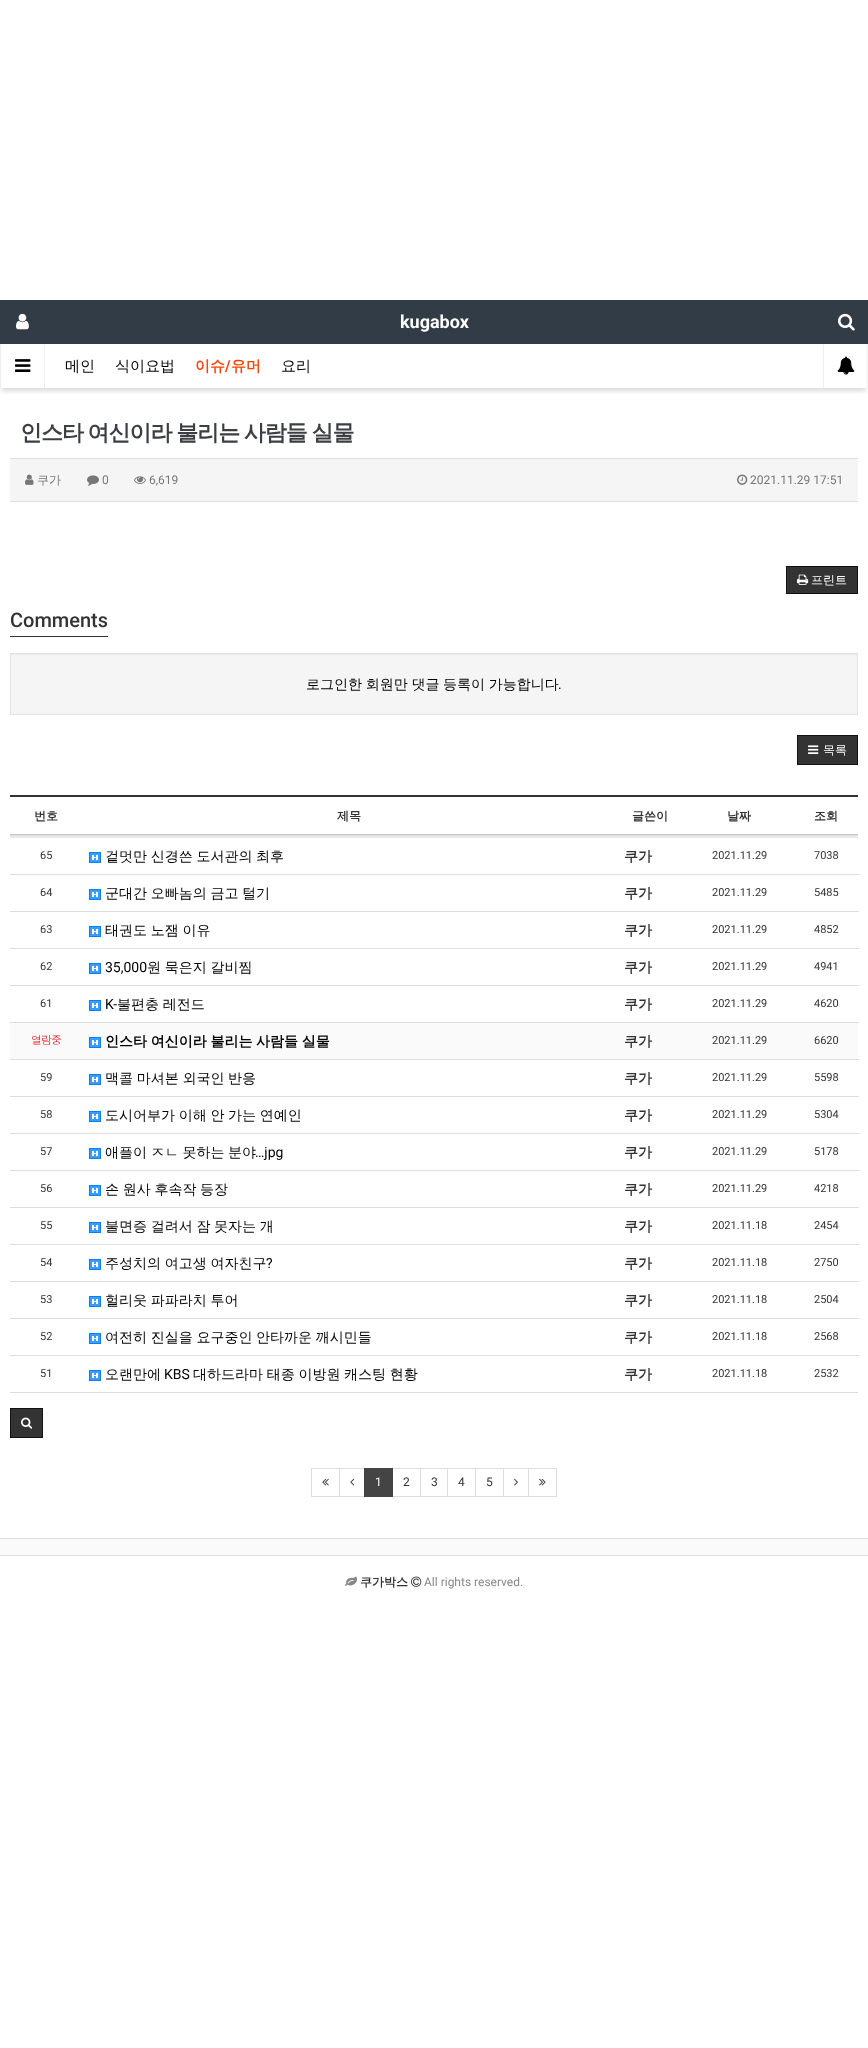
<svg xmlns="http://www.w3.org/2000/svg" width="868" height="2048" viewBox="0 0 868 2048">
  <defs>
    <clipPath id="clip1"><rect x="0" y="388" width="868" height="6"/></clipPath>
    <filter id="blur1" x="-50%" y="-200%" width="200%" height="500%"><feGaussianBlur stdDeviation="2.5"/></filter>
  </defs>
  <rect width="100%" height="100%" fill="#ffffff"/>
  <rect x="0" y="300" width="868" height="44" fill="#323c46"/>
  <image x="16" y="313" width="13" height="17" href="img1.png"/>
  <text x="400" y="328" font-family="Roboto" font-size="18" font-weight="bold" fill="#ffffff">kugabox</text>
  <image x="838" y="313" width="17" height="18" href="img2.png"/>
  <g clip-path="url(#clip1)">
    <rect x="2" y="351" width="864" height="40" fill="#191919" fill-opacity="0.15" filter="url(#blur1)"/>
  </g>
  <rect x="0" y="344" width="1" height="44" fill="#eeeeee"/>
  <image x="15" y="359" width="16" height="13" href="img3.png"/>
  <rect x="44" y="344" width="1" height="44" fill="#eeeeee"/>
  <text x="65" y="371" font-family="WenQuanYi Zen Hei" font-size="15" font-weight="500" fill="#000000">메인</text>
  <text x="115" y="371" font-family="WenQuanYi Zen Hei" font-size="15" font-weight="500" fill="#000000">식이요법</text>
  <text x="195" y="371" font-family="WenQuanYi Zen Hei" font-size="15" font-weight="bold" fill="#ff4500">이슈</text>
  <text x="225" y="371" font-family="Roboto" font-size="15" font-weight="bold" fill="#ff4500">/</text>
  <text x="231" y="371" font-family="WenQuanYi Zen Hei" font-size="15" font-weight="bold" fill="#ff4500">유머</text>
  <text x="281" y="371" font-family="WenQuanYi Zen Hei" font-size="15" font-weight="500" fill="#000000">요리</text>
  <rect x="867" y="344" width="1" height="44" fill="#eeeeee"/>
  <rect x="823" y="344" width="1" height="44" fill="#eeeeee"/>
  <image x="837" y="356" width="18" height="19" href="img4.png"/>
  <text x="20" y="440" word-spacing="-1" font-family="WenQuanYi Zen Hei" font-size="22" font-weight="bold" letter-spacing="-1" fill="#3b3e43">인스타 여신이라 불리는 사람들 실물</text>
  <rect x="10" y="458" width="848" height="1" fill="#dddddd"/>
  <rect x="10" y="459" width="848" height="42" fill="#f5f5f5"/>
  <rect x="10" y="501" width="848" height="1" fill="#dddddd"/>
  <image x="25" y="474" width="9" height="11" href="img5.png"/>
  <text x="37" y="484" font-family="WenQuanYi Zen Hei" font-size="12" font-weight="500" fill="#777777">쿠가</text>
  <image x="87" y="475" width="12" height="11" href="img6.png"/>
  <text x="102" y="484" font-family="Roboto" font-size="12" fill="#777777">0</text>
  <image x="134" y="476" width="12" height="8" href="img7.png"/>
  <text x="149" y="484" font-family="Roboto" font-size="12" fill="#777777">6,619</text>
  <image x="737" y="474" width="11" height="11" href="img8.png"/>
  <text x="750" y="484" font-family="Roboto" font-size="12" fill="#777777">2021.11.29 17:51</text>
  <rect x="786.5" y="566.5" width="71" height="27" fill="#333333" stroke="#111111"/>
  <image x="797" y="574" width="12" height="11" href="img9.png"/>
  <text x="811" y="584" font-family="WenQuanYi Zen Hei" font-size="12" font-weight="500" fill="#ffffff">프린트</text>
  <rect x="10" y="636" width="98" height="1" fill="#333333"/>
  <text x="10" y="627" font-family="Roboto" font-size="20" font-weight="500" fill="#333333">Comments</text>
  <rect x="11" y="655" width="846" height="59" fill="#f5f5f5"/>
  <rect x="11" y="654" width="846" height="1" fill="#e9e9e9"/>
  <rect x="10.5" y="653.5" width="847" height="61" fill="none" stroke="#e3e3e3"/>
  <text x="306" y="689" word-spacing="-0.5" font-family="WenQuanYi Zen Hei" font-size="14" font-weight="500" fill="#000000">로그인한 회원만 댓글 등록이 가능합니다</text>
  <text x="558" y="689" font-family="Roboto" font-size="14" fill="#000000">.</text>
  <rect x="797.5" y="735.5" width="60" height="29" fill="#333333" stroke="#111111"/>
  <image x="808" y="745" width="11" height="9" href="img10.png"/>
  <text x="823" y="754" font-family="WenQuanYi Zen Hei" font-size="12" font-weight="500" fill="#ffffff">목록</text>
  <rect x="10" y="1392" width="848" height="1" fill="#dddddd"/>
  <image x="10" y="795" width="71" height="43" href="img11.png"/>
  <text x="34" y="820" font-family="WenQuanYi Zen Hei" font-size="12" font-weight="bold" fill="#333333">번호</text>
  <image x="81" y="795" width="535" height="43" href="img12.png"/>
  <text x="337" y="820" font-family="WenQuanYi Zen Hei" font-size="12" font-weight="bold" fill="#333333">제목</text>
  <image x="616" y="795" width="68" height="43" href="img13.png"/>
  <text x="632" y="820" font-family="WenQuanYi Zen Hei" font-size="12" font-weight="bold" fill="#333333">글쓴이</text>
  <image x="684" y="795" width="111" height="43" href="img14.png"/>
  <text x="727" y="820" font-family="WenQuanYi Zen Hei" font-size="12" font-weight="bold" fill="#333333">날짜</text>
  <image x="795" y="795" width="63" height="43" href="img15.png"/>
  <text x="814" y="820" font-family="WenQuanYi Zen Hei" font-size="12" font-weight="bold" fill="#333333">조회</text>
  <text x="40" y="859" font-family="Roboto" font-size="11" fill="#333333">65</text>
  <image x="89" y="852" width="12" height="11" href="img16.png"/>
  <text x="105" y="861" word-spacing="-0.5" font-family="WenQuanYi Zen Hei" font-size="14" font-weight="500" fill="#000000">겉멋만 신경쓴 도서관의 최후</text>
  <text x="624" y="861" font-family="WenQuanYi Zen Hei" font-size="14" font-weight="bold" fill="#333333">쿠가</text>
  <text x="712" y="859" font-family="Roboto" font-size="11" fill="#333333">2021.11.29</text>
  <text x="814" y="859" font-family="Roboto" font-size="11" fill="#333333">7038</text>
  <text x="40" y="896" font-family="Roboto" font-size="11" fill="#333333">64</text>
  <image x="89" y="889" width="12" height="11" href="img16.png"/>
  <text x="105" y="898" word-spacing="-0.5" font-family="WenQuanYi Zen Hei" font-size="14" font-weight="500" fill="#000000">군대간 오빠놈의 금고 털기</text>
  <text x="624" y="898" font-family="WenQuanYi Zen Hei" font-size="14" font-weight="bold" fill="#333333">쿠가</text>
  <text x="712" y="896" font-family="Roboto" font-size="11" fill="#333333">2021.11.29</text>
  <rect x="10" y="874" width="849" height="1" fill="#dddddd"/>
  <text x="814" y="896" font-family="Roboto" font-size="11" fill="#333333">5485</text>
  <text x="40" y="933" font-family="Roboto" font-size="11" fill="#333333">63</text>
  <image x="89" y="926" width="12" height="11" href="img16.png"/>
  <text x="105" y="935" word-spacing="-0.5" font-family="WenQuanYi Zen Hei" font-size="14" font-weight="500" fill="#000000">태권도 노잼 이유</text>
  <text x="624" y="935" font-family="WenQuanYi Zen Hei" font-size="14" font-weight="bold" fill="#333333">쿠가</text>
  <text x="712" y="933" font-family="Roboto" font-size="11" fill="#333333">2021.11.29</text>
  <rect x="10" y="911" width="849" height="1" fill="#dddddd"/>
  <text x="814" y="933" font-family="Roboto" font-size="11" fill="#333333">4852</text>
  <text x="40" y="970" font-family="Roboto" font-size="11" fill="#333333">62</text>
  <image x="89" y="963" width="12" height="11" href="img16.png"/>
  <text x="105" y="972" font-family="Roboto" font-size="14" fill="#000000">35,000</text>
  <text x="147" y="972" word-spacing="-0.5" font-family="WenQuanYi Zen Hei" font-size="14" font-weight="500" fill="#000000">원 묵은지 갈비찜</text>
  <text x="624" y="972" font-family="WenQuanYi Zen Hei" font-size="14" font-weight="bold" fill="#333333">쿠가</text>
  <text x="712" y="970" font-family="Roboto" font-size="11" fill="#333333">2021.11.29</text>
  <rect x="10" y="948" width="849" height="1" fill="#dddddd"/>
  <text x="814" y="970" font-family="Roboto" font-size="11" fill="#333333">4941</text>
  <text x="40" y="1007" font-family="Roboto" font-size="11" fill="#333333">61</text>
  <image x="89" y="1000" width="12" height="11" href="img16.png"/>
  <text x="105" y="1009" font-family="Roboto" font-size="14" fill="#000000">K-</text>
  <text x="117" y="1009" word-spacing="-0.5" font-family="WenQuanYi Zen Hei" font-size="14" font-weight="500" fill="#000000">불편충 레전드</text>
  <text x="624" y="1009" font-family="WenQuanYi Zen Hei" font-size="14" font-weight="bold" fill="#333333">쿠가</text>
  <text x="712" y="1007" font-family="Roboto" font-size="11" fill="#333333">2021.11.29</text>
  <rect x="10" y="985" width="849" height="1" fill="#dddddd"/>
  <text x="814" y="1007" font-family="Roboto" font-size="11" fill="#333333">4620</text>
  <rect x="10" y="1023" width="848" height="36" fill="#fafafa"/>
  <text x="31" y="1044" font-family="Dotum" font-size="11" letter-spacing="-1" fill="#e91b23">열람중</text>
  <image x="89" y="1037" width="12" height="11" href="img16.png"/>
  <text x="105" y="1046" word-spacing="-0.5" font-family="WenQuanYi Zen Hei" font-size="14" font-weight="bold" fill="#000000">인스타 여신이라 불리는 사람들 실물</text>
  <text x="624" y="1046" font-family="WenQuanYi Zen Hei" font-size="14" font-weight="bold" fill="#333333">쿠가</text>
  <text x="712" y="1044" font-family="Roboto" font-size="11" fill="#333333">2021.11.29</text>
  <rect x="10" y="1022" width="849" height="1" fill="#dddddd"/>
  <text x="814" y="1044" font-family="Roboto" font-size="11" fill="#333333">6620</text>
  <text x="40" y="1081" font-family="Roboto" font-size="11" fill="#333333">59</text>
  <image x="89" y="1074" width="12" height="11" href="img16.png"/>
  <text x="105" y="1083" word-spacing="-0.5" font-family="WenQuanYi Zen Hei" font-size="14" font-weight="500" fill="#000000">맥콜 마셔본 외국인 반응</text>
  <text x="624" y="1083" font-family="WenQuanYi Zen Hei" font-size="14" font-weight="bold" fill="#333333">쿠가</text>
  <text x="712" y="1081" font-family="Roboto" font-size="11" fill="#333333">2021.11.29</text>
  <rect x="10" y="1059" width="849" height="1" fill="#dddddd"/>
  <text x="814" y="1081" font-family="Roboto" font-size="11" fill="#333333">5598</text>
  <text x="40" y="1118" font-family="Roboto" font-size="11" fill="#333333">58</text>
  <image x="89" y="1111" width="12" height="11" href="img16.png"/>
  <text x="105" y="1120" word-spacing="-0.5" font-family="WenQuanYi Zen Hei" font-size="14" font-weight="500" fill="#000000">도시어부가 이해 안 가는 연예인</text>
  <text x="624" y="1120" font-family="WenQuanYi Zen Hei" font-size="14" font-weight="bold" fill="#333333">쿠가</text>
  <text x="712" y="1118" font-family="Roboto" font-size="11" fill="#333333">2021.11.29</text>
  <rect x="10" y="1096" width="849" height="1" fill="#dddddd"/>
  <text x="814" y="1118" font-family="Roboto" font-size="11" fill="#333333">5304</text>
  <text x="40" y="1155" font-family="Roboto" font-size="11" fill="#333333">57</text>
  <image x="89" y="1148" width="12" height="11" href="img16.png"/>
  <text x="105" y="1157" word-spacing="-0.5" font-family="WenQuanYi Zen Hei" font-size="14" font-weight="500" fill="#000000">애플이 ㅈㄴ 못하는 분야</text>
  <text x="255" y="1157" font-family="Roboto" font-size="14" fill="#000000">…jpg</text>
  <text x="624" y="1157" font-family="WenQuanYi Zen Hei" font-size="14" font-weight="bold" fill="#333333">쿠가</text>
  <text x="712" y="1155" font-family="Roboto" font-size="11" fill="#333333">2021.11.29</text>
  <rect x="10" y="1133" width="849" height="1" fill="#dddddd"/>
  <text x="814" y="1155" font-family="Roboto" font-size="11" fill="#333333">5178</text>
  <text x="40" y="1192" font-family="Roboto" font-size="11" fill="#333333">56</text>
  <image x="89" y="1185" width="12" height="11" href="img16.png"/>
  <text x="105" y="1194" word-spacing="-0.5" font-family="WenQuanYi Zen Hei" font-size="14" font-weight="500" fill="#000000">손 원사 후속작 등장</text>
  <text x="624" y="1194" font-family="WenQuanYi Zen Hei" font-size="14" font-weight="bold" fill="#333333">쿠가</text>
  <text x="712" y="1192" font-family="Roboto" font-size="11" fill="#333333">2021.11.29</text>
  <rect x="10" y="1170" width="849" height="1" fill="#dddddd"/>
  <text x="814" y="1192" font-family="Roboto" font-size="11" fill="#333333">4218</text>
  <text x="40" y="1229" font-family="Roboto" font-size="11" fill="#333333">55</text>
  <image x="89" y="1222" width="12" height="11" href="img16.png"/>
  <text x="105" y="1231" word-spacing="-0.5" font-family="WenQuanYi Zen Hei" font-size="14" font-weight="500" fill="#000000">불면증 걸려서 잠 못자는 개</text>
  <text x="624" y="1231" font-family="WenQuanYi Zen Hei" font-size="14" font-weight="bold" fill="#333333">쿠가</text>
  <text x="712" y="1229" font-family="Roboto" font-size="11" fill="#333333">2021.11.18</text>
  <rect x="10" y="1207" width="849" height="1" fill="#dddddd"/>
  <text x="814" y="1229" font-family="Roboto" font-size="11" fill="#333333">2454</text>
  <text x="40" y="1266" font-family="Roboto" font-size="11" fill="#333333">54</text>
  <image x="89" y="1259" width="12" height="11" href="img16.png"/>
  <text x="105" y="1268" word-spacing="-0.5" font-family="WenQuanYi Zen Hei" font-size="14" font-weight="500" fill="#000000">주성치의 여고생 여자친구</text>
  <text x="266" y="1268" font-family="Roboto" font-size="14" fill="#000000">?</text>
  <text x="624" y="1268" font-family="WenQuanYi Zen Hei" font-size="14" font-weight="bold" fill="#333333">쿠가</text>
  <text x="712" y="1266" font-family="Roboto" font-size="11" fill="#333333">2021.11.18</text>
  <rect x="10" y="1244" width="849" height="1" fill="#dddddd"/>
  <text x="814" y="1266" font-family="Roboto" font-size="11" fill="#333333">2750</text>
  <text x="40" y="1303" font-family="Roboto" font-size="11" fill="#333333">53</text>
  <image x="89" y="1296" width="12" height="11" href="img16.png"/>
  <text x="105" y="1305" word-spacing="-0.5" font-family="WenQuanYi Zen Hei" font-size="14" font-weight="500" fill="#000000">헐리웃 파파라치 투어</text>
  <text x="624" y="1305" font-family="WenQuanYi Zen Hei" font-size="14" font-weight="bold" fill="#333333">쿠가</text>
  <text x="712" y="1303" font-family="Roboto" font-size="11" fill="#333333">2021.11.18</text>
  <rect x="10" y="1281" width="849" height="1" fill="#dddddd"/>
  <text x="814" y="1303" font-family="Roboto" font-size="11" fill="#333333">2504</text>
  <text x="40" y="1340" font-family="Roboto" font-size="11" fill="#333333">52</text>
  <image x="89" y="1333" width="12" height="11" href="img16.png"/>
  <text x="105" y="1342" word-spacing="-0.5" font-family="WenQuanYi Zen Hei" font-size="14" font-weight="500" fill="#000000">여전히 진실을 요구중인 안타까운 깨시민들</text>
  <text x="624" y="1342" font-family="WenQuanYi Zen Hei" font-size="14" font-weight="bold" fill="#333333">쿠가</text>
  <text x="712" y="1340" font-family="Roboto" font-size="11" fill="#333333">2021.11.18</text>
  <rect x="10" y="1318" width="849" height="1" fill="#dddddd"/>
  <text x="814" y="1340" font-family="Roboto" font-size="11" fill="#333333">2568</text>
  <text x="40" y="1377" font-family="Roboto" font-size="11" fill="#333333">51</text>
  <image x="89" y="1370" width="12" height="11" href="img16.png"/>
  <text x="105" y="1379" font-family="WenQuanYi Zen Hei" font-size="14" font-weight="500" fill="#000000">오랜만에</text>
  <text x="164" y="1379" font-family="Roboto" font-size="14" fill="#000000">KBS</text>
  <text x="193" y="1379" word-spacing="-0.5" font-family="WenQuanYi Zen Hei" font-size="14" font-weight="500" fill="#000000">대하드라마 태종 이방원 캐스팅 현황</text>
  <text x="624" y="1379" font-family="WenQuanYi Zen Hei" font-size="14" font-weight="bold" fill="#333333">쿠가</text>
  <text x="712" y="1377" font-family="Roboto" font-size="11" fill="#333333">2021.11.18</text>
  <rect x="10" y="1355" width="849" height="1" fill="#dddddd"/>
  <text x="814" y="1377" font-family="Roboto" font-size="11" fill="#333333">2532</text>
  <rect x="10.5" y="1408.5" width="32" height="29" fill="#333333" stroke="#111111"/>
  <image x="21" y="1417" width="12" height="12" href="img17.png"/>
  <rect x="311.5" y="1468.5" width="28" height="28" fill="none" stroke="#dddddd"/>
  <image x="322" y="1478" width="7" height="8" href="img18.png"/>
  <rect x="339.5" y="1468.5" width="25" height="28" fill="none" stroke="#dddddd"/>
  <image x="350" y="1478" width="5" height="8" href="img19.png"/>
  <rect x="392.5" y="1468.5" width="28" height="28" fill="none" stroke="#dddddd"/>
  <rect x="364" y="1468" width="29" height="29" fill="#444444"/>
  <text x="375" y="1486" font-family="Roboto" font-size="12" fill="#ffffff">1</text>
  <text x="403" y="1486" font-family="Roboto" font-size="12" fill="#333333">2</text>
  <rect x="420.5" y="1468.5" width="27" height="28" fill="none" stroke="#dddddd"/>
  <text x="431" y="1486" font-family="Roboto" font-size="12" fill="#333333">3</text>
  <rect x="447.5" y="1468.5" width="28" height="28" fill="none" stroke="#dddddd"/>
  <text x="458" y="1486" font-family="Roboto" font-size="12" fill="#333333">4</text>
  <rect x="475.5" y="1468.5" width="28" height="28" fill="none" stroke="#dddddd"/>
  <text x="486" y="1486" font-family="Roboto" font-size="12" fill="#333333">5</text>
  <rect x="503.5" y="1468.5" width="25" height="28" fill="none" stroke="#dddddd"/>
  <image x="514" y="1478" width="4" height="8" href="img20.png"/>
  <rect x="528.5" y="1468.5" width="28" height="28" fill="none" stroke="#dddddd"/>
  <image x="539" y="1478" width="7" height="8" href="img21.png"/>
  <rect x="0" y="1539" width="868" height="16" fill="#fafafa"/>
  <rect x="0" y="1538" width="868" height="1" fill="#dddddd"/>
  <rect x="0" y="1555" width="868" height="1" fill="#dddddd"/>
  <image x="345" y="1576" width="12" height="10" href="img22.png"/>
  <text x="360" y="1586" font-family="WenQuanYi Zen Hei" font-size="12" font-weight="bold" fill="#333333">쿠가박스</text>
  <image x="411" y="1576" width="11" height="11" href="img23.png"/>
  <text x="424" y="1586" font-family="Roboto" font-size="12" fill="#888888">All rights reserved.</text>
</svg>
